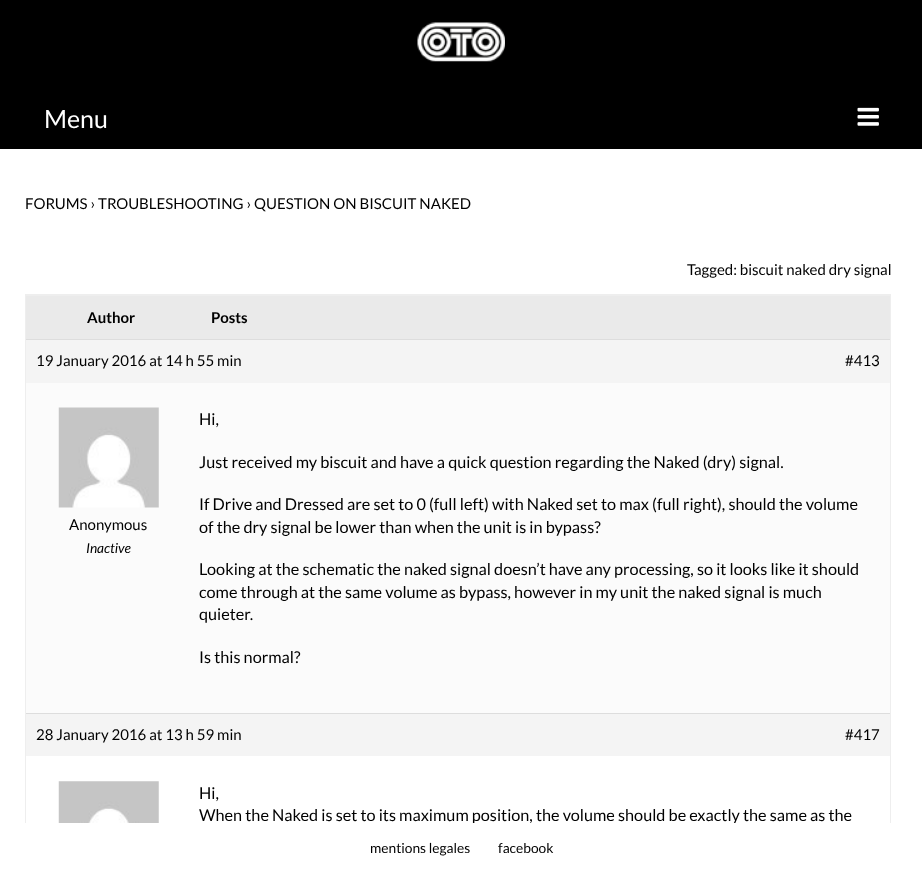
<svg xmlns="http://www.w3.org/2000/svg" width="922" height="872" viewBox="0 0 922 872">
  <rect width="100%" height="100%" fill="#ffffff"/>
  <rect x="0" y="0" width="922" height="149" fill="#000000"/>
  <image x="417" y="22" width="88" height="40" href="img1.png"/>
  <text x="44" y="128" font-family="Lato" font-size="25" fill="#ffffff">Menu</text>
  <image x="857" y="107" width="22" height="19" href="img2.png"/>
  <text x="25" y="209" font-family="Lato" font-size="15" fill="#000000">FORUMS › TROUBLESHOOTING › QUESTION ON BISCUIT NAKED</text>
  <text x="687" y="275" font-family="Lato" font-size="15" fill="#000000">Tagged: biscuit naked dry signal</text>
  <rect x="25.5" y="294.5" width="865" height="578" fill="none" stroke="#eeeeee"/>
  <rect x="26" y="296" width="864" height="43" fill="#eaeaea"/>
  <rect x="26" y="295" width="864" height="1" fill="#eeeeee"/>
  <text x="87" y="323" font-family="Lato" font-size="15" font-weight="bold" fill="#000000">Author</text>
  <text x="211" y="323" font-family="Lato" font-size="15" font-weight="bold" fill="#000000">Posts</text>
  <rect x="26" y="340" width="864" height="43" fill="#f4f4f4"/>
  <rect x="26" y="339" width="864" height="1" fill="#dddddd"/>
  <text x="36" y="366" font-family="Lato" font-size="15" fill="#000000">19 January 2016 at 14 h 55 min</text>
  <text x="845" y="366" font-family="Lato" font-size="15" fill="#000000">#413</text>
  <rect x="26" y="383" width="864" height="330" fill="#fbfbfb"/>
  <image x="58" y="407" width="101" height="101" href="img3.png"/>
  <text x="69" y="530" font-family="Lato" font-size="15" fill="#000000">Anonymous</text>
  <text x="86" y="553" font-family="Lato" font-size="13.75" font-style="italic" fill="#000000">Inactive</text>
  <text x="199" y="425" font-family="Lato" font-size="16.25" fill="#000000">Hi,</text>
  <text x="199" y="468" font-family="Lato" font-size="16.25" fill="#000000">Just received my biscuit and have a quick question regarding the Naked (dry) signal.</text>
  <text x="199" y="510" font-family="Lato" font-size="16.25" fill="#000000">If Drive and Dressed are set to 0 (full left) with Naked set to max (full right), should the volume</text>
  <text x="199" y="533" font-family="Lato" font-size="16.25" fill="#000000">of the dry signal be lower than when the unit is in bypass?</text>
  <text x="199" y="575" font-family="Lato" font-size="16.25" fill="#000000">Looking at the schematic the naked signal doesn’t have any processing, so it looks like it should</text>
  <text x="199" y="598" font-family="Lato" font-size="16.25" fill="#000000">come through at the same volume as bypass, however in my unit the naked signal is much</text>
  <text x="199" y="620" font-family="Lato" font-size="16.25" fill="#000000">quieter.</text>
  <text x="199" y="663" font-family="Lato" font-size="16.25" fill="#000000">Is this normal?</text>
  <rect x="26" y="714" width="864" height="42" fill="#f4f4f4"/>
  <rect x="26" y="713" width="864" height="1" fill="#dddddd"/>
  <text x="36" y="740" font-family="Lato" font-size="15" fill="#000000">28 January 2016 at 13 h 59 min</text>
  <text x="845" y="740" font-family="Lato" font-size="15" fill="#000000">#417</text>
  <image x="58" y="781" width="101" height="42" href="img4.png"/>
  <text x="199" y="799" font-family="Lato" font-size="16.25" fill="#000000">Hi,</text>
  <text x="199" y="821" font-family="Lato" font-size="16.25" fill="#000000">When the Naked is set to its maximum position, the volume should be exactly the same as the</text>
  <rect x="25" y="823" width="866" height="49" fill="#ffffff"/>
  <text x="370" y="853" font-family="Lato" font-size="13.75" fill="#000000">mentions legales</text>
  <text x="498" y="853" font-family="Lato" font-size="13.75" fill="#000000">facebook</text>
</svg>
